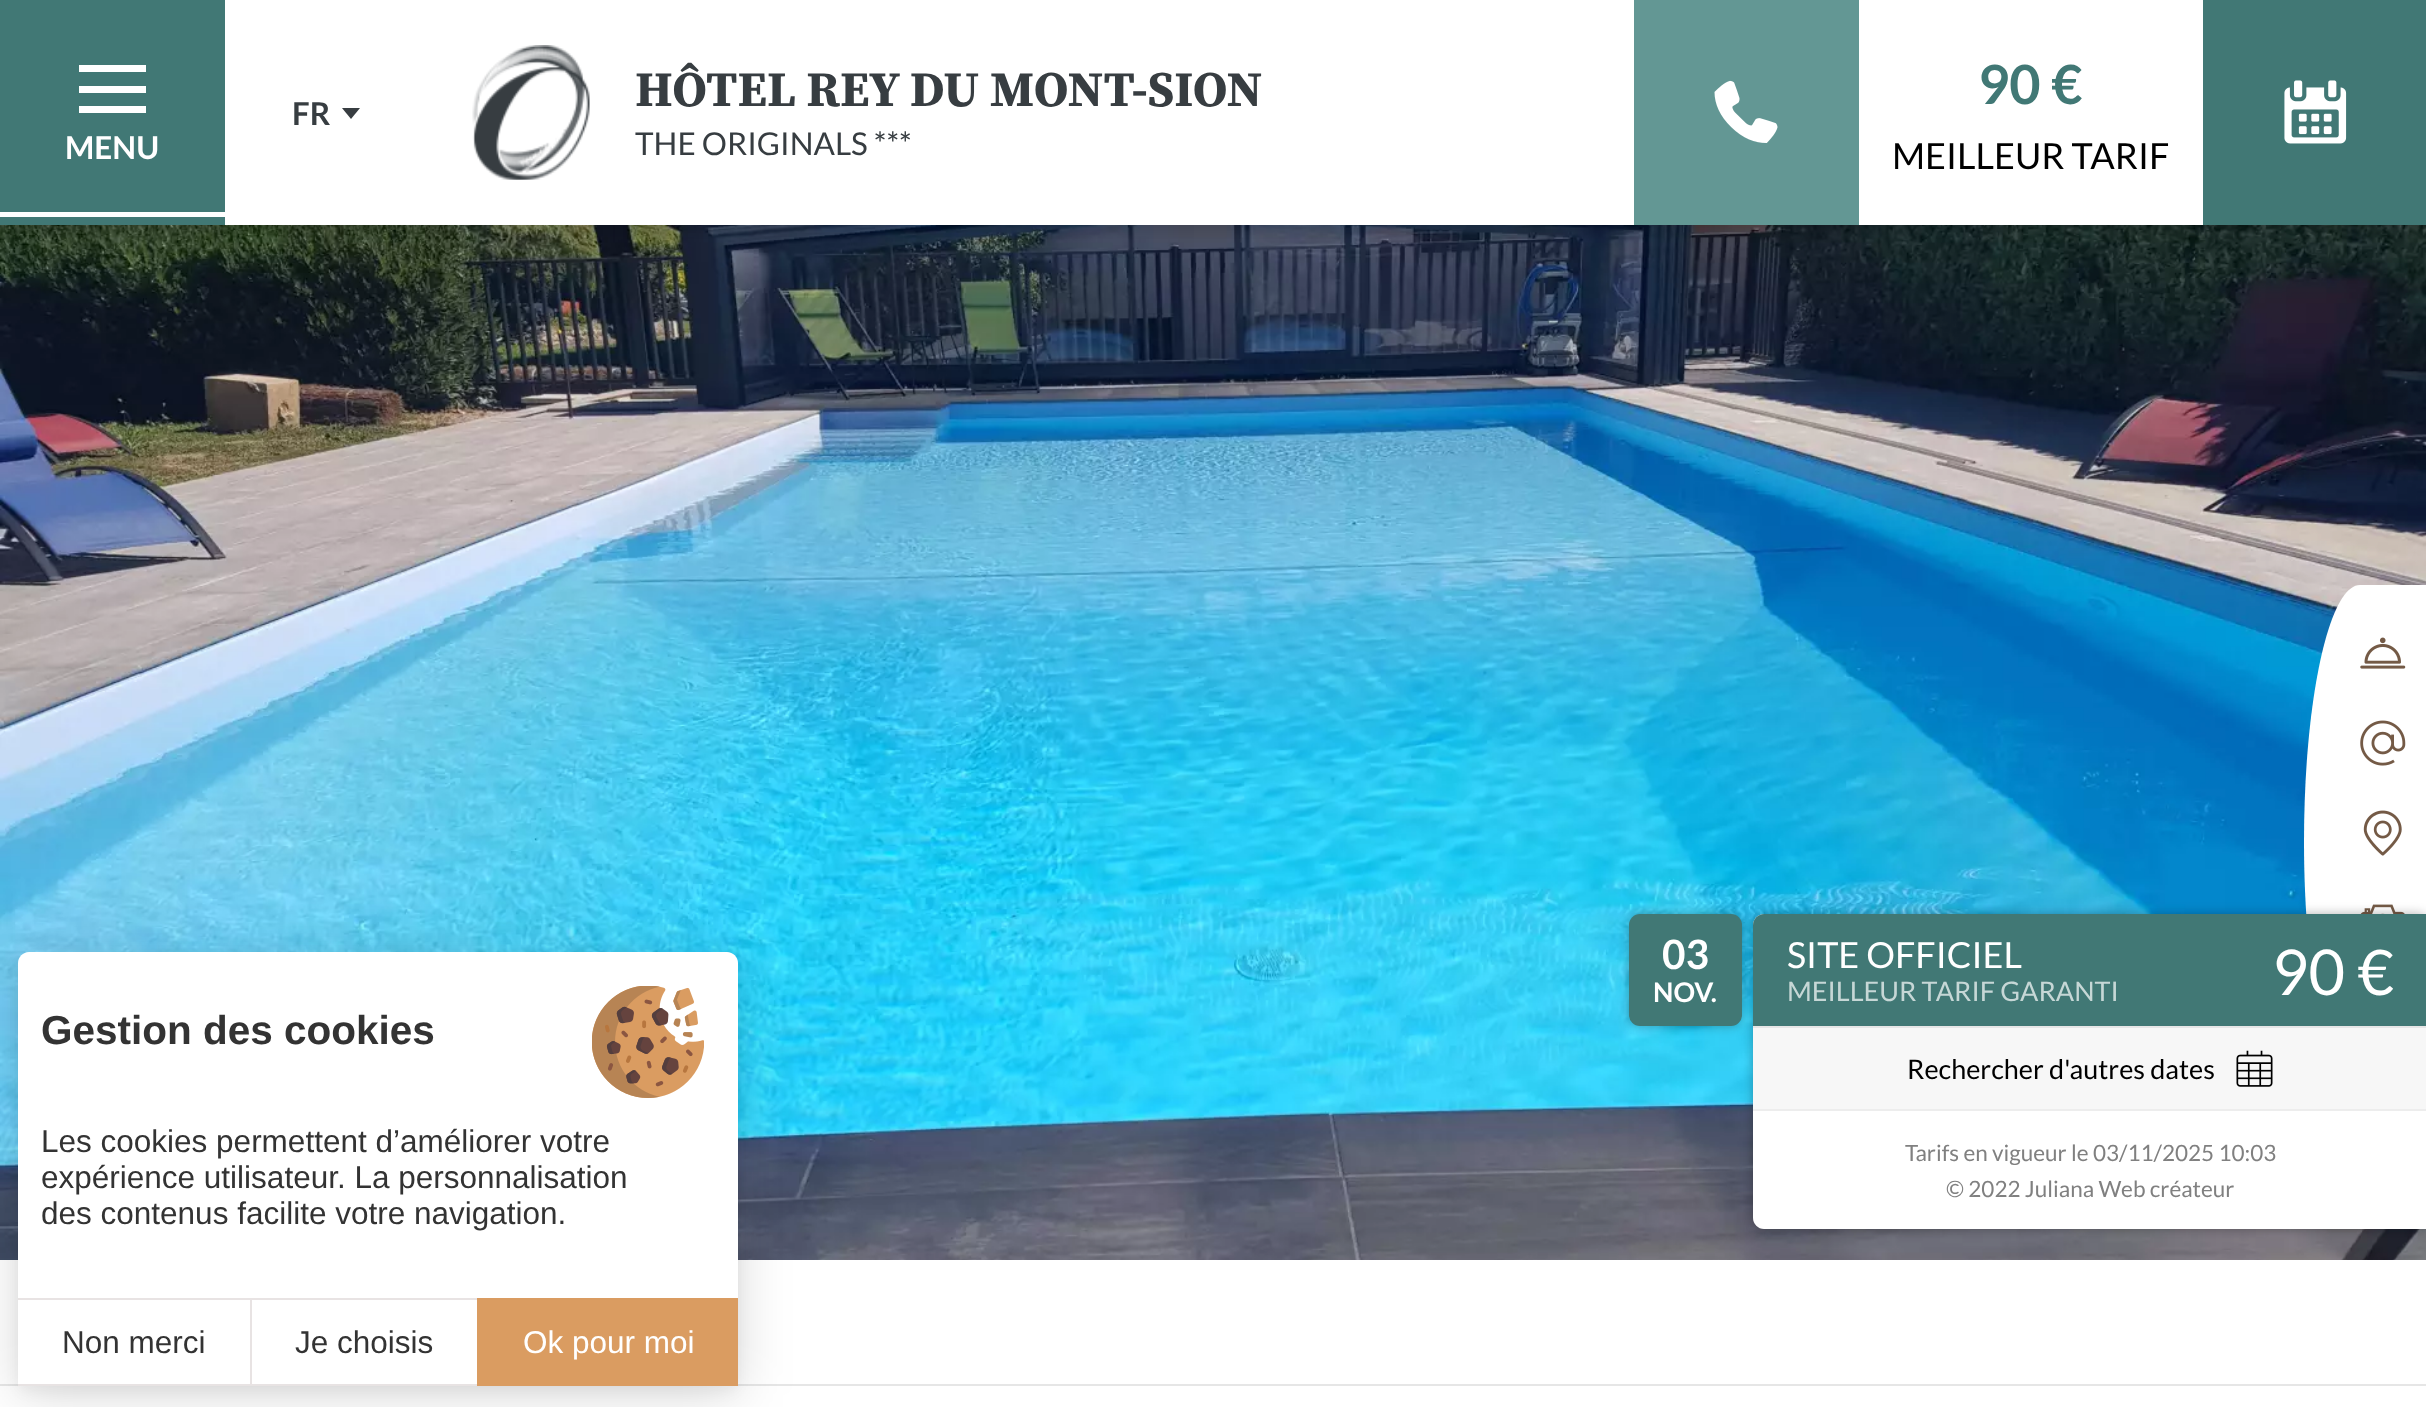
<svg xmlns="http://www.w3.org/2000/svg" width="2426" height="1407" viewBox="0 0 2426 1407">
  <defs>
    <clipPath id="clip1"><rect x="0" y="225" width="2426" height="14"/></clipPath>
    <filter id="blur1" x="-50%" y="-200%" width="200%" height="500%"><feGaussianBlur stdDeviation="11"/></filter>
    <filter id="blur2" x="-50%" y="-200%" width="200%" height="500%"><feGaussianBlur stdDeviation="7"/></filter>
    <filter id="blur3" x="-50%" y="-200%" width="200%" height="500%"><feGaussianBlur stdDeviation="27"/></filter>
    <filter id="blur4" x="-50%" y="-200%" width="200%" height="500%"><feGaussianBlur stdDeviation="5.5"/></filter>
  </defs>
  <rect width="100%" height="100%" fill="#ffffff"/>
  <image x="0" y="225" width="2426" height="1035" href="img4.png"/>
  <g clip-path="url(#clip1)">
    <rect x="0" y="0" width="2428" height="225" fill="#000000" fill-opacity="0.2" filter="url(#blur1)"/>
  </g>
  <text x="292" y="125" font-family="Lato" font-size="31.5" font-weight="bold" fill="#373d41">FR</text>
  <path d="M351 119L342 108H360Z" fill="#373d41"/>
  <rect x="0" y="0" width="225" height="225" fill="#417875"/>
  <rect x="79" y="65" width="67" height="7" fill="#ffffff"/>
  <rect x="79" y="86" width="67" height="7" fill="#ffffff"/>
  <rect x="79" y="106" width="67" height="7" fill="#ffffff"/>
  <text x="65" y="159" font-family="Lato" font-size="31.5" font-weight="bold" fill="#ffffff">MENU</text>
  <rect x="0" y="212" width="225" height="5" fill="#ffffff"/>
  <image x="472" y="45" width="118" height="135" href="img1.png"/>
  <text x="635" y="106" font-family="Source Serif Pro" font-size="49.5" font-weight="bold" fill="#373d41">HÔTEL REY DU MONT-SION</text>
  <text x="635" y="155" font-family="Lato" font-size="31.5" fill="#373d41">THE ORIGINALS ***</text>
  <rect x="1634" y="0" width="225" height="225" fill="#639794"/>
  <image x="1714" y="80" width="64" height="63" href="img2.png"/>
  <text x="1978" y="104" font-family="Lato" font-size="54" font-weight="bold" fill="#417875">90 €</text>
  <text x="1892" y="169" font-family="Lato" font-size="36" fill="#000000">MEILLEUR TARIF</text>
  <rect x="2203" y="0" width="223" height="225" fill="#417875"/>
  <image x="2284" y="80" width="63" height="64" href="img3.png"/>
  <path d="M2360 585V1098C2329 1098 2304 983 2304 842C2304 700 2329 585 2360 585Z" fill="#ffffff"/>
  <rect x="2360" y="585" width="66" height="329" fill="#ffffff"/>
  <image x="2360" y="637" width="46" height="32" href="img5.png"/>
  <image x="2360" y="720" width="46" height="46" href="img6.png"/>
  <image x="2363" y="810" width="39" height="46" href="img7.png"/>
  <image x="2360" y="904" width="45" height="10" href="img8.png"/>
  <rect x="0" y="1384" width="2426" height="2" fill="#e6e6e6"/>
  <rect x="18" y="956" width="720" height="435" rx="11" fill="#000000" fill-opacity="0.05" filter="url(#blur2)"/>
  <rect x="18" y="961" width="720" height="434" rx="11" fill="#000000" fill-opacity="0.15" filter="url(#blur3)"/>
  <path d="M29 952H727C733 952 738 957 738 963V1386H18V963C18 957 23 952 29 952Z" fill="#ffffff"/>
  <image x="592" y="986" width="112" height="112" href="img9.png"/>
  <text x="41" y="1044" font-family="Liberation Sans" font-size="40.5" font-weight="bold" fill="#333333">Gestion des cookies</text>
  <text x="41" y="1152" font-family="Liberation Sans" font-size="31.5" fill="#333333">Les cookies permettent d’améliorer votre</text>
  <text x="41" y="1188" font-family="Liberation Sans" font-size="31.5" fill="#333333">expérience utilisateur. La personnalisation</text>
  <text x="41" y="1224" font-family="Liberation Sans" font-size="31.5" fill="#333333">des contenus facilite votre navigation.</text>
  <rect x="18" y="1298" width="459" height="2" fill="#e8e3e3"/>
  <rect x="18" y="1384" width="459" height="2" fill="#e8e3e3"/>
  <text x="62" y="1353" font-family="Liberation Sans" font-size="31.5" fill="#333333">Non merci</text>
  <rect x="250" y="1298" width="2" height="88" fill="#e8e3e3"/>
  <text x="295" y="1353" font-family="Liberation Sans" font-size="31.5" fill="#333333">Je choisis</text>
  <rect x="477" y="1298" width="261" height="88" fill="#da9c61"/>
  <text x="523" y="1353" font-family="Liberation Sans" font-size="31.5" fill="#ffffff">Ok pour moi</text>
  <rect x="1753" y="914" width="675" height="315" rx="11" fill="#000000" fill-opacity="0.3" filter="url(#blur4)"/>
  <path d="M1764 914H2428V1229H1764C1758 1229 1753 1224 1753 1218V925C1753 919 1758 914 1764 914Z" fill="#ffffff"/>
  <path d="M1764 914H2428V1026H1753V925C1753 919 1758 914 1764 914Z" fill="#417875"/>
  <rect x="1753" y="1028" width="673" height="81" fill="#f7f7f7"/>
  <rect x="1753" y="1026" width="673" height="2" fill="#e6e6e6"/>
  <rect x="1629" y="914" width="113" height="112" rx="11" fill="#000000" fill-opacity="0.3" filter="url(#blur4)"/>
  <rect x="1629" y="914" width="113" height="112" rx="11" fill="#417875"/>
  <text x="1662" y="969" font-family="Lato" font-size="40.5" font-weight="bold" fill="#ffffff">03</text>
  <text x="1653" y="1002" font-family="Lato" font-size="27" font-weight="bold" fill="#ffffff">NOV.</text>
  <text x="1787" y="968" font-family="Lato" font-size="36" fill="#ffffff">SITE OFFICIEL</text>
  <text x="1787" y="1001" font-family="Lato" font-size="27" fill="#c6d7d6">MEILLEUR TARIF GARANTI</text>
  <text x="2272" y="995" font-family="Lato" font-size="63" fill="#ffffff">90 €</text>
  <text x="1907" y="1079" font-family="Lato" font-size="27" fill="#000000">Rechercher d'autres dates</text>
  <image x="2236" y="1050" width="37" height="37" href="img10.png"/>
  <rect x="1753" y="1109" width="673" height="2" fill="#ededed"/>
  <text x="1905" y="1161" font-family="Lato" font-size="22.5" fill="#808080">Tarifs en vigueur le 03/11/2025 10:03</text>
  <text x="1946" y="1197" font-family="Lato" font-size="22.5" fill="#808080">© 2022 Juliana Web créateur</text>
</svg>
